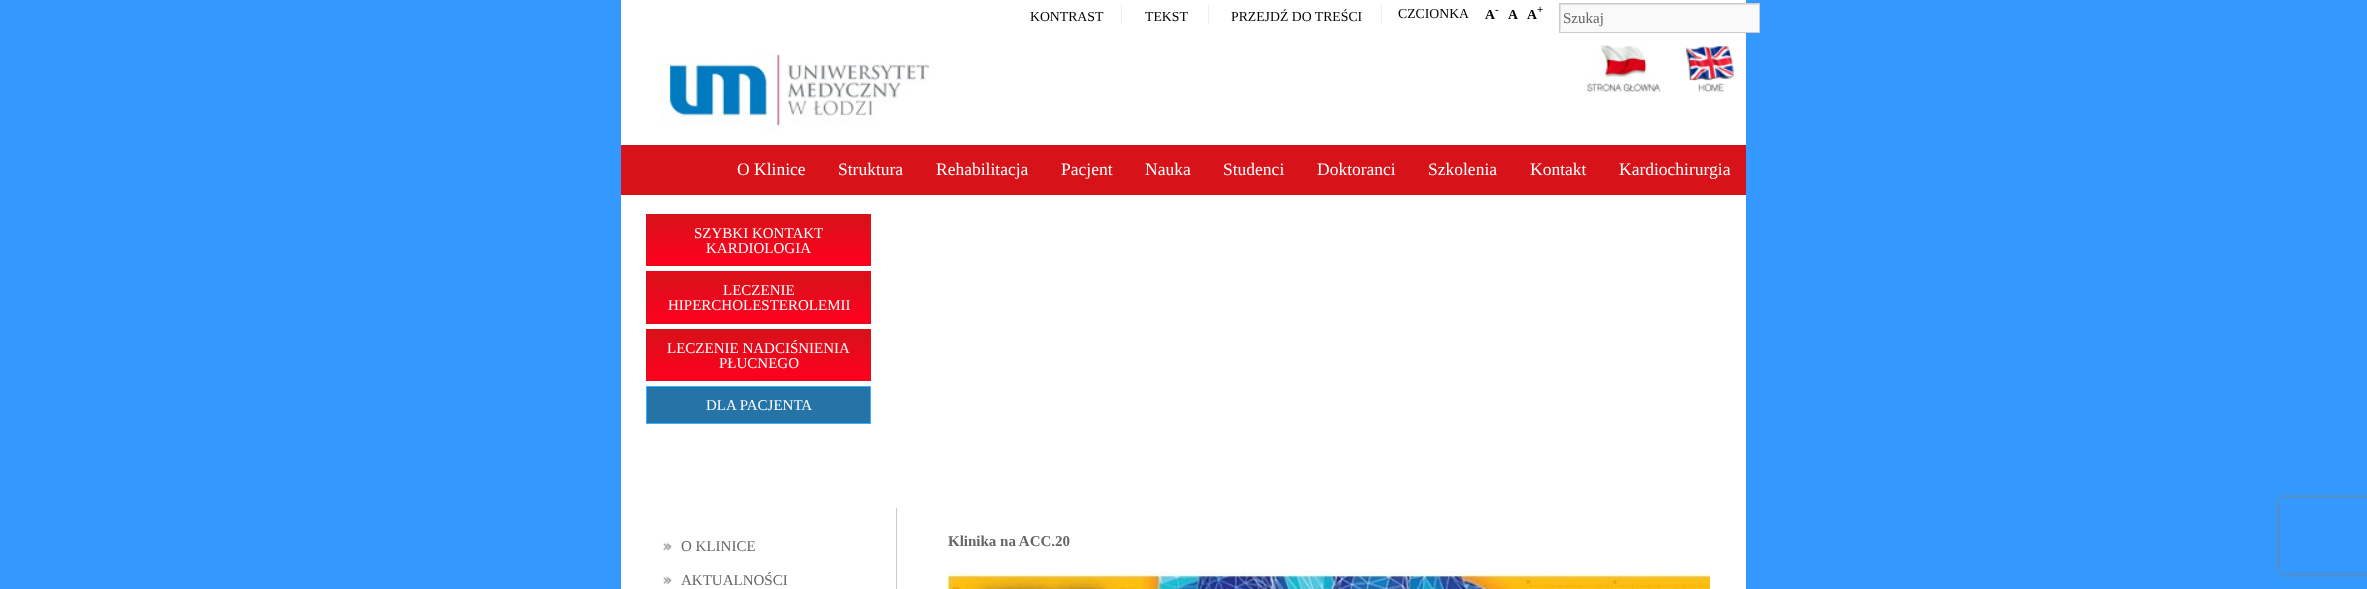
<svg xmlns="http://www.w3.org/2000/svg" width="2367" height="589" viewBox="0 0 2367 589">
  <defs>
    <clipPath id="clip1"><rect x="1560" y="4" width="199" height="27"/></clipPath>
    <linearGradient id="g1" gradientUnits="userSpaceOnUse" x1="759" y1="215" x2="759" y2="265"><stop offset="0" stop-color="#d71219"/><stop offset="1" stop-color="#ff001e"/></linearGradient>
    <linearGradient id="g2" gradientUnits="userSpaceOnUse" x1="759" y1="223" x2="759" y2="273"><stop offset="0" stop-color="#d71219"/><stop offset="1" stop-color="#ff001e"/></linearGradient>
    <linearGradient id="g3" gradientUnits="userSpaceOnUse" x1="759" y1="273" x2="759" y2="323"><stop offset="0" stop-color="#d71219"/><stop offset="1" stop-color="#ff001e"/></linearGradient>
    <linearGradient id="g4" gradientUnits="userSpaceOnUse" x1="759" y1="330" x2="759" y2="380"><stop offset="0" stop-color="#d71219"/><stop offset="1" stop-color="#ff001e"/></linearGradient>
    <clipPath id="clip2"><path d="M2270 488H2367V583H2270ZM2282.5 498H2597.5C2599 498 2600 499 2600 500.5V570.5C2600 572 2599 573 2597.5 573H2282.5C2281 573 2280 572 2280 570.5V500.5C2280 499 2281 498 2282.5 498Z" clip-rule="evenodd"/></clipPath>
    <filter id="blur1" x="-50%" y="-200%" width="200%" height="500%"><feGaussianBlur stdDeviation="3"/></filter>
  </defs>
  <rect width="100%" height="100%" fill="#3399ff"/>
  <rect x="621" y="0" width="1125" height="589" fill="#ffffff"/>
  <rect x="1121" y="5" width="1" height="19" fill="#eeeeee"/>
  <text x="1030" y="21" font-family="Liberation Serif" font-size="13.75" fill="#000000">KONTRAST</text>
  <rect x="1208" y="5" width="1" height="19" fill="#eeeeee"/>
  <text x="1145" y="21" font-family="Liberation Serif" font-size="13.75" fill="#000000">TEKST</text>
  <rect x="1381" y="5" width="1" height="19" fill="#eeeeee"/>
  <text x="1231" y="21" font-family="Liberation Serif" font-size="13.75" fill="#000000">PRZEJDŹ DO TREŚCI</text>
  <text x="1398" y="18" font-family="Liberation Serif" font-size="13.75" fill="#000000">CZCIONKA</text>
  <text x="1485" y="19" font-family="Liberation Serif" font-size="13.75" font-weight="bold" fill="#000000">A</text>
  <text x="1495" y="13" font-family="Liberation Serif" font-size="11" font-weight="bold" fill="#000000">-</text>
  <text x="1508" y="19" font-family="Liberation Serif" font-size="13.75" font-weight="bold" fill="#000000">A</text>
  <text x="1527" y="19" font-family="Liberation Serif" font-size="13.75" font-weight="bold" fill="#000000">A</text>
  <text x="1537" y="13" font-family="Liberation Serif" font-size="11" font-weight="bold" fill="#000000">+</text>
  <rect x="1560" y="5" width="199" height="27" fill="#f9f9f9"/>
  <g clip-path="url(#clip1)">
    <path d="M1436-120H1882V155H1436ZM1561 5H1760V32H1561Z" fill="#e0e0e0" fill-rule="evenodd"/>
  </g>
  <rect x="1559.5" y="3.5" width="200" height="29" fill="none" stroke="#cccccc"/>
  <text x="1563" y="23" font-family="Liberation Serif" font-size="15" fill="#666666">Szukaj</text>
  <image x="661" y="53" width="268" height="78" href="img1.png"/>
  <image x="1587" y="45" width="74" height="47" href="img2.png"/>
  <image x="1686" y="46" width="48" height="46" href="img3.png"/>
  <rect x="621" y="145" width="1125" height="50" fill="#d71219"/>
  <text x="737" y="175" font-family="Liberation Serif" font-size="17.5" fill="#ffffff">O Klinice</text>
  <text x="838" y="175" font-family="Liberation Serif" font-size="17.5" fill="#ffffff">Struktura</text>
  <text x="936" y="175" font-family="Liberation Serif" font-size="17.5" fill="#ffffff">Rehabilitacja</text>
  <text x="1061" y="175" font-family="Liberation Serif" font-size="17.5" fill="#ffffff">Pacjent</text>
  <text x="1145" y="175" font-family="Liberation Serif" font-size="17.5" fill="#ffffff">Nauka</text>
  <text x="1223" y="175" font-family="Liberation Serif" font-size="17.5" fill="#ffffff">Studenci</text>
  <text x="1317" y="175" font-family="Liberation Serif" font-size="17.5" fill="#ffffff">Doktoranci</text>
  <text x="1428" y="175" font-family="Liberation Serif" font-size="17.5" fill="#ffffff">Szkolenia</text>
  <text x="1530" y="175" font-family="Liberation Serif" font-size="17.5" fill="#ffffff">Kontakt</text>
  <text x="1619" y="175" font-family="Liberation Serif" font-size="17.5" fill="#ffffff">Kardiochirurgia</text>
  <rect x="647" y="215" width="223" height="50" fill="url(#g1)"/>
  <rect x="646.5" y="214.5" width="224" height="51" fill="none" stroke="#d71219"/>
  <text x="694" y="238" font-family="Liberation Serif" font-size="15" fill="#ffffff">SZYBKI KONTAKT</text>
  <text x="706" y="253" font-family="Liberation Serif" font-size="15" fill="#ffffff">KARDIOLOGIA</text>
  <rect x="646" y="272" width="225" height="1" fill="url(#g2)"/>
  <rect x="647" y="273" width="223" height="50" fill="url(#g3)"/>
  <rect x="646.5" y="271.5" width="224" height="52" fill="none" stroke="#d71219"/>
  <text x="723" y="295" font-family="Liberation Serif" font-size="15" fill="#ffffff">LECZENIE</text>
  <text x="668" y="310" font-family="Liberation Serif" font-size="15" fill="#ffffff">HIPERCHOLESTEROLEMII</text>
  <rect x="647" y="330" width="223" height="50" fill="url(#g4)"/>
  <rect x="646.5" y="329.5" width="224" height="51" fill="none" stroke="#d71219"/>
  <text x="667" y="353" font-family="Liberation Serif" font-size="15" fill="#ffffff">LECZENIE NADCIŚNIENIA</text>
  <text x="719" y="368" font-family="Liberation Serif" font-size="15" fill="#ffffff">PŁUCNEGO</text>
  <rect x="646.5" y="386.5" width="224" height="37" fill="#2574a8" stroke="#3cb0fd"/>
  <text x="706" y="410" font-family="Liberation Serif" font-size="15" fill="#ffffff">DLA PACJENTA</text>
  <rect x="896" y="508" width="1" height="81" fill="#cccccc"/>
  <image x="663" y="542" width="9" height="9" href="img4.png"/>
  <text x="681" y="551" font-family="Liberation Serif" font-size="15" fill="#666666">O KLINICE</text>
  <image x="663" y="576" width="9" height="9" href="img5.png"/>
  <text x="681" y="585" font-family="Liberation Serif" font-size="15" fill="#666666">AKTUALNOŚCI</text>
  <text x="948" y="546" font-family="Liberation Serif" font-size="15" font-weight="bold" fill="#666666">Klinika na ACC.20</text>
  <image x="947" y="571" width="763" height="18" href="img6.png"/>
  <g clip-path="url(#clip2)">
    <rect x="2280" y="498" width="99" height="75" rx="2.5" fill="#808080" filter="url(#blur1)"/>
  </g>
</svg>
